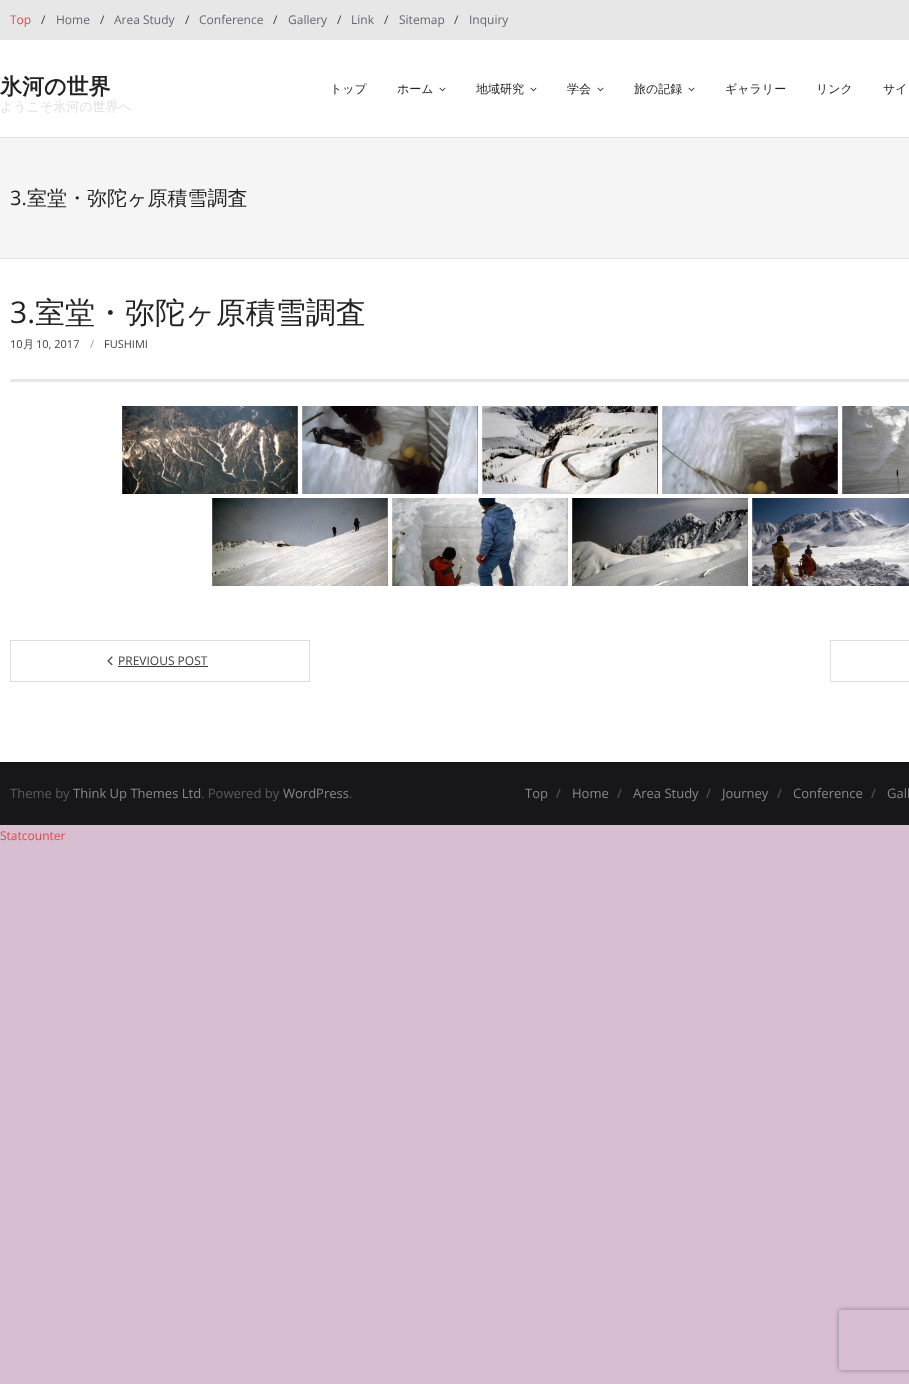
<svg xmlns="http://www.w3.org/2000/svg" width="909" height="1384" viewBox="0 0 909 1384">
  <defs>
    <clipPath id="clip1"><path d="M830 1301H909V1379H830ZM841 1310H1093C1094 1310 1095 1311 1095 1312V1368C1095 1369 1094 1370 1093 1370H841C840 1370 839 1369 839 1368V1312C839 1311 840 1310 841 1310Z" clip-rule="evenodd"/></clipPath>
    <filter id="blur1" x="-50%" y="-200%" width="200%" height="500%"><feGaussianBlur stdDeviation="2.5"/></filter>
  </defs>
  <rect width="100%" height="100%" fill="#d8bed1"/>
  <rect x="0" y="40" width="909" height="722" fill="#ffffff"/>
  <rect x="0" y="0" width="909" height="40" fill="#e7e7e7"/>
  <text x="10" y="24" font-family="Open Sans" font-size="12" fill="#e0484c">Top</text>
  <text x="41" y="24" font-family="Open Sans" font-size="12" fill="#3d3d3d">/</text>
  <text x="56" y="24" font-family="Open Sans" font-size="12" fill="#666677">Home</text>
  <text x="100" y="24" font-family="Open Sans" font-size="12" fill="#3d3d3d">/</text>
  <text x="114" y="24" font-family="Open Sans" font-size="12" fill="#666677">Area Study</text>
  <text x="185" y="24" font-family="Open Sans" font-size="12" fill="#3d3d3d">/</text>
  <text x="199" y="24" font-family="Open Sans" font-size="12" fill="#666677">Conference</text>
  <text x="273" y="24" font-family="Open Sans" font-size="12" fill="#3d3d3d">/</text>
  <text x="288" y="24" font-family="Open Sans" font-size="12" fill="#666677">Gallery</text>
  <text x="337" y="24" font-family="Open Sans" font-size="12" fill="#3d3d3d">/</text>
  <text x="351" y="24" font-family="Open Sans" font-size="12" fill="#666677">Link</text>
  <text x="384" y="24" font-family="Open Sans" font-size="12" fill="#3d3d3d">/</text>
  <text x="399" y="24" font-family="Open Sans" font-size="12" fill="#666677">Sitemap</text>
  <text x="454" y="24" font-family="Open Sans" font-size="12" fill="#3d3d3d">/</text>
  <text x="469" y="24" font-family="Open Sans" font-size="12" fill="#666677">Inquiry</text>
  <rect x="0" y="137" width="909" height="1" fill="#e3e3e3"/>
  <text x="0" y="94" font-family="WenQuanYi Zen Hei" font-size="22" font-weight="bold" fill="#232323">氷河の世界</text>
  <text x="0" y="111" font-family="WenQuanYi Zen Hei" font-size="13" font-weight="500" fill="#e0e0e0">ようこそ氷河の世界へ</text>
  <text x="330" y="93" font-family="WenQuanYi Zen Hei" font-size="12" font-weight="500" fill="#232323">トップ</text>
  <text x="397" y="93" font-family="WenQuanYi Zen Hei" font-size="12" font-weight="500" fill="#232323">ホーム</text>
  <image x="439" y="87" width="7" height="5" href="img1.png"/>
  <text x="476" y="93" font-family="WenQuanYi Zen Hei" font-size="12" font-weight="500" fill="#232323">地域研究</text>
  <image x="530" y="87" width="7" height="5" href="img1.png"/>
  <text x="567" y="93" font-family="WenQuanYi Zen Hei" font-size="12" font-weight="500" fill="#232323">学会</text>
  <image x="597" y="87" width="7" height="5" href="img1.png"/>
  <text x="634" y="93" font-family="WenQuanYi Zen Hei" font-size="12" font-weight="500" fill="#232323">旅の記録</text>
  <image x="688" y="87" width="7" height="5" href="img1.png"/>
  <text x="725" y="93" font-family="WenQuanYi Zen Hei" font-size="12" font-weight="500" fill="#232323">ギャラリー</text>
  <text x="816" y="93" font-family="WenQuanYi Zen Hei" font-size="12" font-weight="500" fill="#232323">リンク</text>
  <text x="883" y="93" font-family="WenQuanYi Zen Hei" font-size="12" font-weight="500" fill="#232323">サイ</text>
  <rect x="0" y="138" width="909" height="120" fill="#f5f5f5"/>
  <rect x="0" y="258" width="909" height="1" fill="#e3e3e3"/>
  <text x="10" y="205" font-family="Open Sans" font-size="20" fill="#232323">3.</text>
  <text x="27" y="205" font-family="WenQuanYi Zen Hei" font-size="20" font-weight="500" fill="#232323">室堂・弥陀ヶ原積雪調査</text>
  <rect x="10" y="379" width="899" height="3" fill="#e7e7e7"/>
  <text x="10" y="323" font-family="Open Sans" font-size="30" fill="#232323">3.</text>
  <text x="35" y="323" font-family="WenQuanYi Zen Hei" font-size="30" font-weight="500" fill="#232323">室堂・弥陀ヶ原積雪調査</text>
  <text x="10" y="348" font-family="Open Sans" font-size="11" fill="#3d3d3d">10</text>
  <text x="23" y="348" font-family="WenQuanYi Zen Hei" font-size="11" font-weight="500" fill="#3d3d3d">月</text>
  <text x="36" y="348" font-family="Open Sans" font-size="11" fill="#3d3d3d">10, 2017</text>
  <text x="90" y="348" font-family="Open Sans" font-size="11" fill="#999999">/</text>
  <text x="104" y="348" font-family="Open Sans" font-size="11" fill="#3d3d3d">FUSHIMI</text>
  <image x="122" y="406" width="176" height="88" href="img2.png"/>
  <image x="302" y="406" width="176" height="88" href="img3.png"/>
  <image x="482" y="406" width="176" height="88" href="img4.png"/>
  <image x="662" y="406" width="176" height="88" href="img5.png"/>
  <image x="842" y="406" width="67" height="88" href="img6.png"/>
  <image x="212" y="498" width="176" height="88" href="img7.png"/>
  <image x="392" y="498" width="176" height="88" href="img8.png"/>
  <image x="572" y="498" width="176" height="88" href="img9.png"/>
  <image x="752" y="498" width="157" height="88" href="img10.png"/>
  <rect x="10.5" y="640.5" width="299" height="41" fill="none" stroke="#dddddd"/>
  <image x="107" y="656" width="6" height="10" href="img11.png"/>
  <text x="118" y="665" font-family="Open Sans" font-size="12" fill="#3d3d3d">PREVIOUS POST</text>
  <rect x="118" y="666" width="90" height="1" fill="#3d3d3d"/>
  <rect x="830.5" y="640.5" width="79" height="41" fill="none" stroke="#dddddd"/>
  <rect x="0" y="762" width="909" height="63" fill="#171719"/>
  <text x="10" y="798" font-family="Open Sans" font-size="13" fill="#5c5c5c">Theme by</text>
  <text x="73" y="798" font-family="Open Sans" font-size="13" fill="#888888">Think Up Themes Ltd</text>
  <text x="201" y="798" font-family="Open Sans" font-size="13" fill="#5c5c5c">. Powered by</text>
  <text x="283" y="798" font-family="Open Sans" font-size="13" fill="#888888">WordPress</text>
  <text x="349" y="798" font-family="Open Sans" font-size="13" fill="#5c5c5c">.</text>
  <text x="525" y="798" font-family="Open Sans" font-size="13" fill="#888888">Top</text>
  <text x="556" y="798" font-family="Open Sans" font-size="13" fill="#5c5c5c">/</text>
  <text x="572" y="798" font-family="Open Sans" font-size="13" fill="#888888">Home</text>
  <text x="617" y="798" font-family="Open Sans" font-size="13" fill="#5c5c5c">/</text>
  <text x="633" y="798" font-family="Open Sans" font-size="13" fill="#888888">Area Study</text>
  <text x="706" y="798" font-family="Open Sans" font-size="13" fill="#5c5c5c">/</text>
  <text x="722" y="798" font-family="Open Sans" font-size="13" fill="#888888">Journey</text>
  <text x="777" y="798" font-family="Open Sans" font-size="13" fill="#5c5c5c">/</text>
  <text x="793" y="798" font-family="Open Sans" font-size="13" fill="#888888">Conference</text>
  <text x="871" y="798" font-family="Open Sans" font-size="13" fill="#5c5c5c">/</text>
  <text x="887" y="798" font-family="Open Sans" font-size="13" fill="#888888">Gall</text>
  <text x="0" y="840" font-family="Open Sans" font-size="12" fill="#e0484c">Statcounter</text>
  <g clip-path="url(#clip1)">
    <rect x="839" y="1310" width="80" height="60" rx="2" fill="#808080" filter="url(#blur1)"/>
  </g>
</svg>
